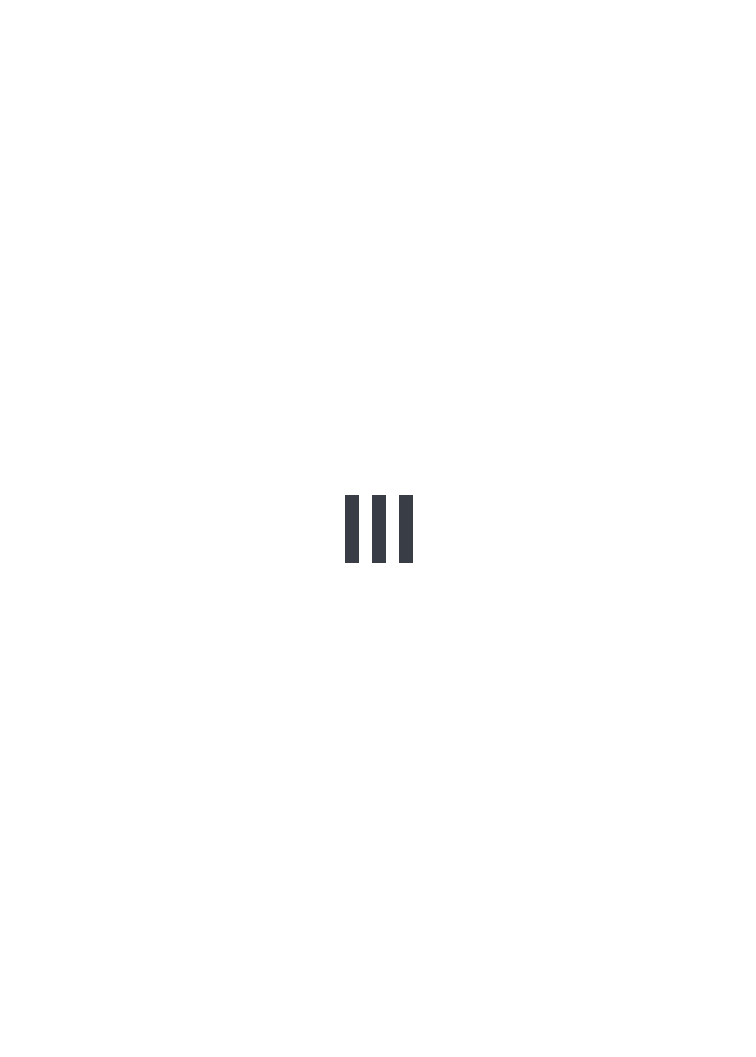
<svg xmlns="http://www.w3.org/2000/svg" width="756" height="1057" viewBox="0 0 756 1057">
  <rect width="100%" height="100%" fill="#ffffff"/>
  <rect x="399" y="495" width="14" height="68" fill="#393e46"/>
  <rect x="372" y="495" width="14" height="68" fill="#393e46"/>
  <rect x="345" y="495" width="14" height="68" fill="#393e46"/>
</svg>
